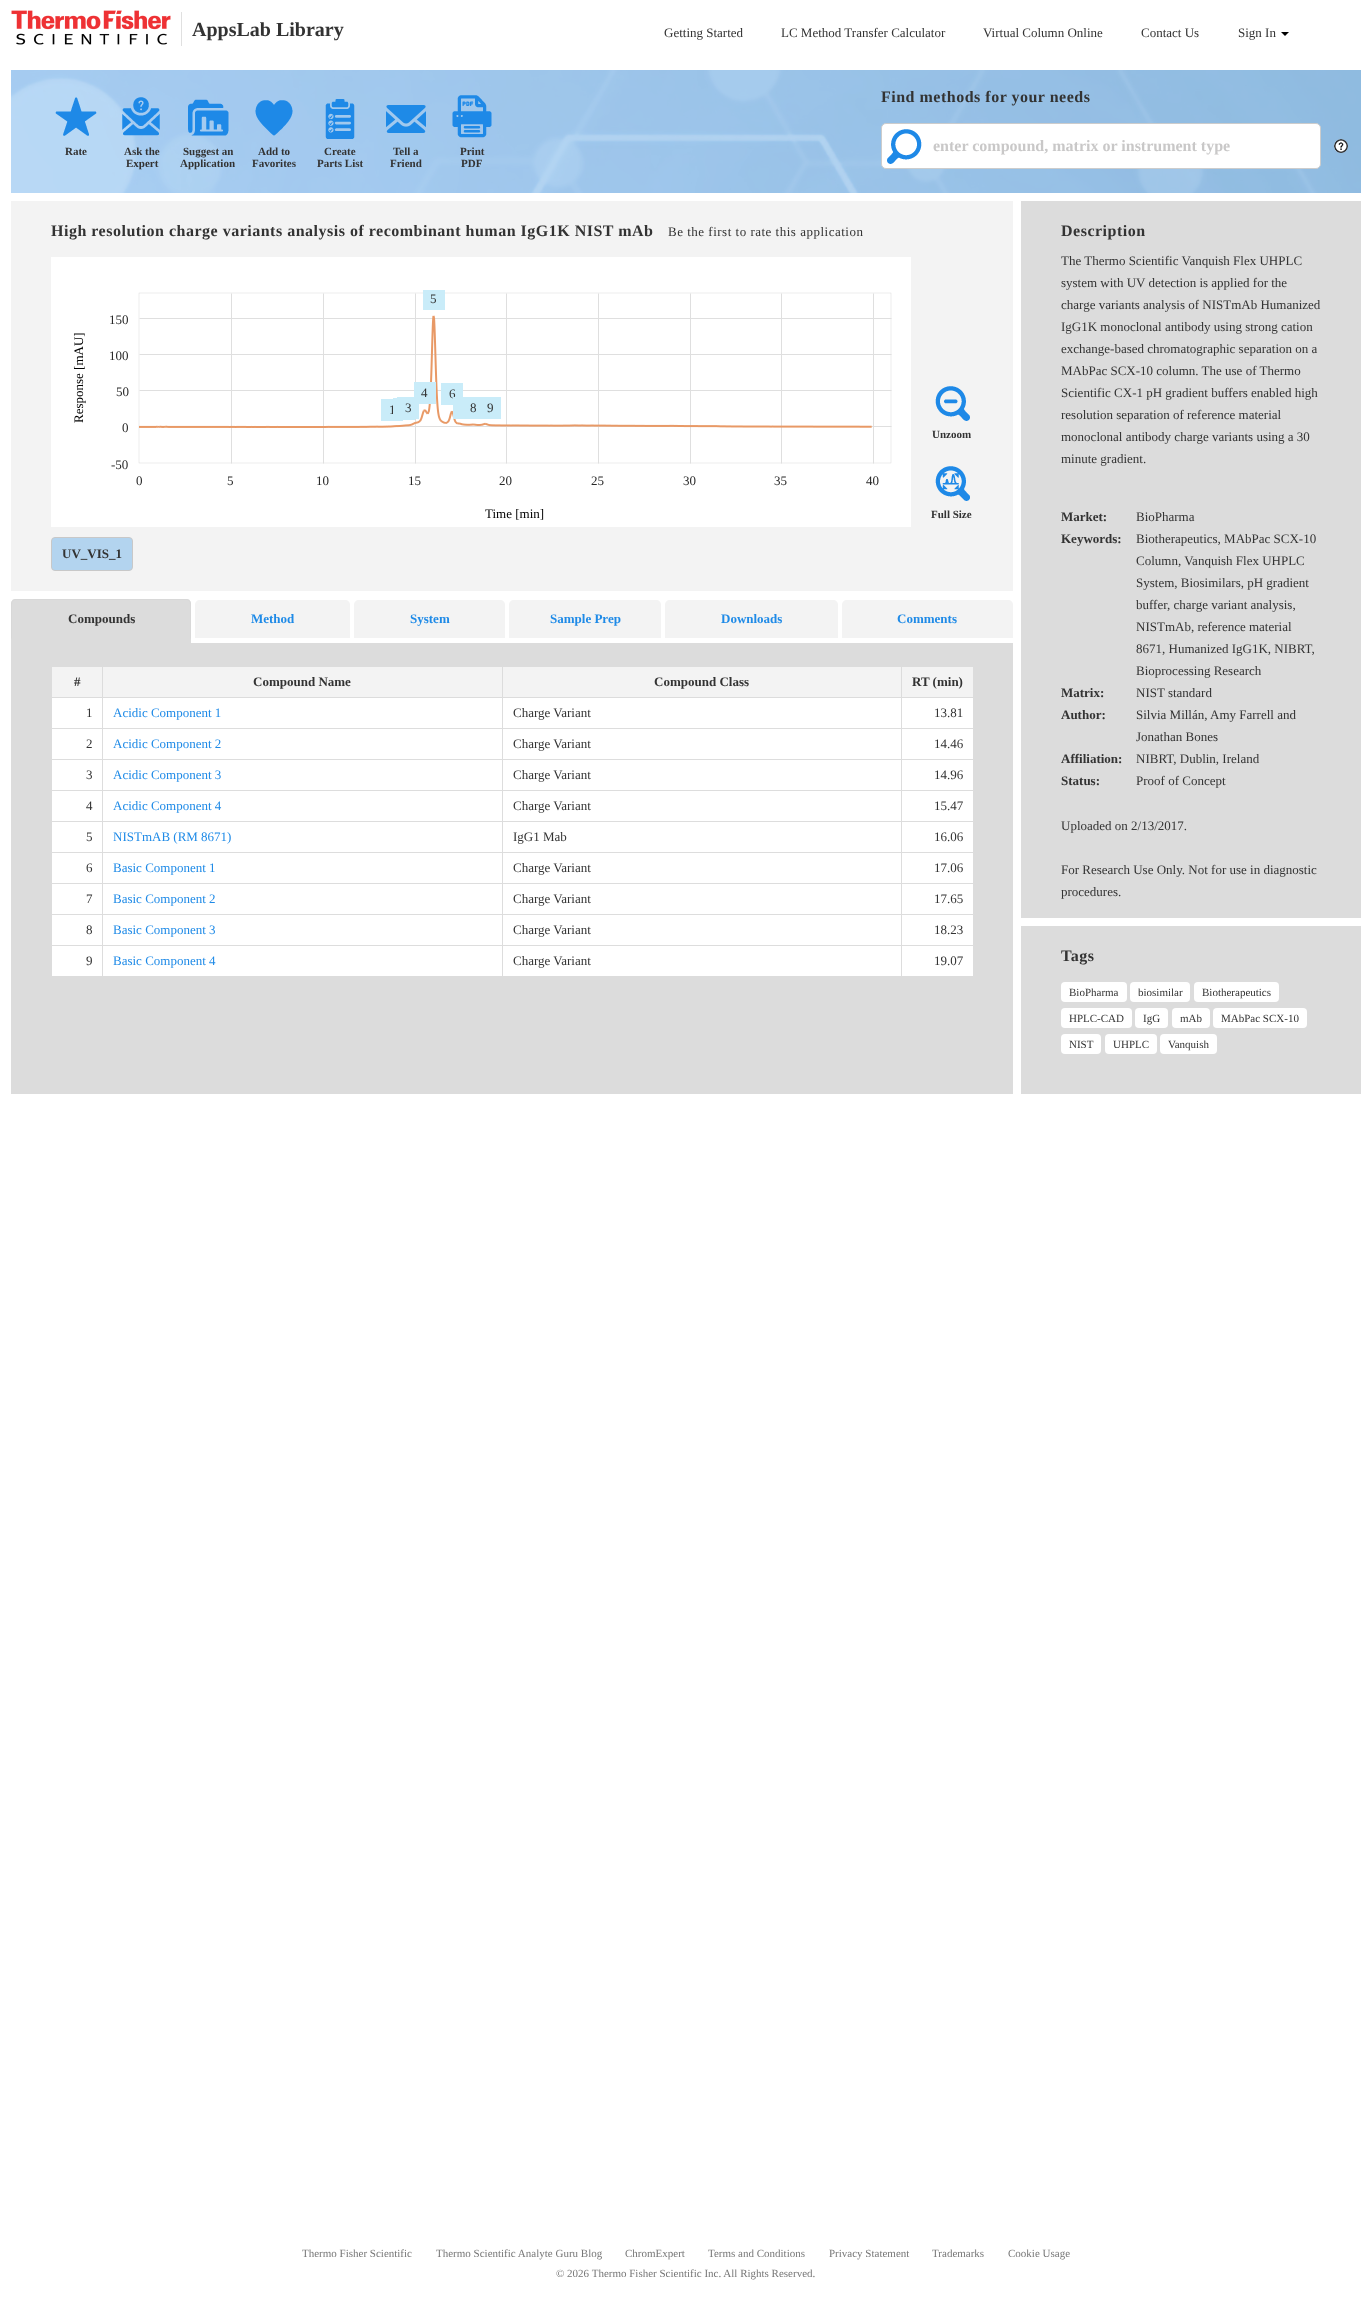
<svg xmlns="http://www.w3.org/2000/svg" width="1372" height="2306" viewBox="0 0 1372 2306">
  <rect width="100%" height="100%" fill="#ffffff"/>
  <image x="11" y="10" width="160" height="35" href="img1.png"/>
  <rect x="181" y="12" width="1" height="34" fill="#e0e0e0"/>
  <text x="192" y="36" font-family="Liberation Serif" font-size="20" font-weight="bold" fill="#333333">AppsLab Library</text>
  <text x="664" y="37" font-family="Liberation Serif" font-size="13" fill="#333333">Getting Started</text>
  <text x="781" y="37" font-family="Liberation Serif" font-size="13" fill="#333333">LC Method Transfer Calculator</text>
  <text x="983" y="37" font-family="Liberation Serif" font-size="13" fill="#333333">Virtual Column Online</text>
  <text x="1141" y="37" font-family="Liberation Serif" font-size="13" fill="#333333">Contact Us</text>
  <text x="1238" y="37" font-family="Liberation Serif" font-size="13" fill="#333333">Sign In</text>
  <path d="M1281 32H1289L1285 36Z" fill="#000000"/>
  <image x="11" y="70" width="1350" height="123" href="img2.png"/>
  <text x="881" y="102" font-family="Liberation Serif" font-size="16" font-weight="bold" letter-spacing="0.5" fill="#333333">Find methods for your needs</text>
  <rect x="881.5" y="123.5" width="439" height="45" rx="4.5" fill="#ffffff" stroke="#cccccc"/>
  <image x="887" y="129" width="35" height="35" href="img3.png"/>
  <text x="933" y="151" font-family="Liberation Serif" font-size="16" font-weight="bold" fill="#c9c8c8">enter compound, matrix or instrument type</text>
  <image x="1334" y="139" width="14" height="14" href="img4.png"/>
  <image x="55" y="97" width="42" height="39" href="img5.png"/>
  <text x="65" y="155" font-family="Liberation Serif" font-size="11" font-weight="bold" fill="#333333">Rate</text>
  <image x="122" y="97" width="38" height="39" href="img6.png"/>
  <text x="124" y="155" font-family="Liberation Serif" font-size="11" font-weight="bold" fill="#333333">Ask the</text>
  <text x="126" y="167" font-family="Liberation Serif" font-size="11" font-weight="bold" fill="#333333">Expert</text>
  <image x="188" y="99" width="41" height="37" href="img7.png"/>
  <text x="183" y="155" font-family="Liberation Serif" font-size="11" font-weight="bold" fill="#333333">Suggest an</text>
  <text x="180" y="167" font-family="Liberation Serif" font-size="11" font-weight="bold" fill="#333333">Application</text>
  <image x="255" y="100" width="38" height="36" href="img8.png"/>
  <text x="258" y="155" font-family="Liberation Serif" font-size="11" font-weight="bold" fill="#333333">Add to</text>
  <text x="252" y="167" font-family="Liberation Serif" font-size="11" font-weight="bold" fill="#333333">Favorites</text>
  <image x="325" y="99" width="30" height="40" href="img9.png"/>
  <text x="324" y="155" font-family="Liberation Serif" font-size="11" font-weight="bold" fill="#333333">Create</text>
  <text x="317" y="167" font-family="Liberation Serif" font-size="11" font-weight="bold" fill="#333333">Parts List</text>
  <image x="386" y="105" width="40" height="28" href="img10.png"/>
  <text x="393" y="155" font-family="Liberation Serif" font-size="11" font-weight="bold" fill="#333333">Tell a</text>
  <text x="390" y="167" font-family="Liberation Serif" font-size="11" font-weight="bold" fill="#333333">Friend</text>
  <image x="452" y="95" width="40" height="43" href="img11.png"/>
  <text x="460" y="155" font-family="Liberation Serif" font-size="11" font-weight="bold" fill="#333333">Print</text>
  <text x="461" y="167" font-family="Liberation Serif" font-size="11" font-weight="bold" fill="#333333">PDF</text>
  <rect x="11" y="643" width="1002" height="451" fill="#dcdcdc"/>
  <rect x="11" y="201" width="1002" height="390" fill="#f3f3f3"/>
  <text x="51" y="236" font-family="Liberation Serif" font-size="16" font-weight="bold" letter-spacing="0.5" fill="#333333">High resolution charge variants analysis of recombinant human IgG1K NIST mAb</text>
  <text x="668" y="236" font-family="Liberation Serif" font-size="13" letter-spacing="0.5" fill="#333333">Be the first to rate this application</text>
  <rect x="51" y="257" width="860" height="270" fill="#ffffff"/>
  <image x="138" y="292" width="754" height="172" href="img12.png"/>
  <text x="109" y="324" font-family="Liberation Serif" font-size="13" fill="#282828">150</text>
  <rect x="423" y="290" width="22" height="20" fill="#c9ecf9"/>
  <text x="430" y="303" font-family="Liberation Serif" font-size="13" fill="#333333">5</text>
  <rect x="381" y="399" width="22" height="22" fill="#c9ecf9"/>
  <text x="389" y="414" font-family="Liberation Serif" font-size="13" fill="#333333">1</text>
  <rect x="393" y="398" width="22" height="22" fill="#c9ecf9"/>
  <rect x="397" y="397" width="22" height="22" fill="#c9ecf9"/>
  <rect x="414" y="382" width="22" height="22" fill="#c9ecf9"/>
  <text x="421" y="397" font-family="Liberation Serif" font-size="13" fill="#333333">4</text>
  <rect x="441" y="383" width="22" height="22" fill="#c9ecf9"/>
  <text x="449" y="398" font-family="Liberation Serif" font-size="13" fill="#333333">6</text>
  <rect x="453" y="397" width="48" height="22" fill="#c9ecf9"/>
  <text x="405" y="412" font-family="Liberation Serif" font-size="13" fill="#333333">3</text>
  <text x="470" y="412" font-family="Liberation Serif" font-size="13" fill="#333333">8</text>
  <text x="487" y="412" font-family="Liberation Serif" font-size="13" fill="#333333">9</text>
  <text x="83" y="423" transform="rotate(-90 83 423)" font-family="Liberation Serif" font-size="13" fill="#000000">Response [mAU]</text>
  <text x="109" y="360" font-family="Liberation Serif" font-size="13" fill="#282828">100</text>
  <text x="116" y="396" font-family="Liberation Serif" font-size="13" fill="#282828">50</text>
  <text x="122" y="432" font-family="Liberation Serif" font-size="13" fill="#282828">0</text>
  <text x="111" y="469" font-family="Liberation Serif" font-size="13" fill="#282828">-50</text>
  <text x="136" y="485" font-family="Liberation Serif" font-size="13" fill="#282828">0</text>
  <text x="227" y="485" font-family="Liberation Serif" font-size="13" fill="#282828">5</text>
  <text x="316" y="485" font-family="Liberation Serif" font-size="13" fill="#282828">10</text>
  <text x="408" y="485" font-family="Liberation Serif" font-size="13" fill="#282828">15</text>
  <text x="499" y="485" font-family="Liberation Serif" font-size="13" fill="#282828">20</text>
  <text x="591" y="485" font-family="Liberation Serif" font-size="13" fill="#282828">25</text>
  <text x="683" y="485" font-family="Liberation Serif" font-size="13" fill="#282828">30</text>
  <text x="774" y="485" font-family="Liberation Serif" font-size="13" fill="#282828">35</text>
  <text x="866" y="485" font-family="Liberation Serif" font-size="13" fill="#282828">40</text>
  <text x="485" y="518" font-family="Liberation Serif" font-size="13" fill="#000000">Time [min]</text>
  <image x="935" y="386" width="35" height="35" href="img13.png"/>
  <text x="932" y="438" font-family="Liberation Serif" font-size="11" font-weight="bold" fill="#333333">Unzoom</text>
  <image x="935" y="466" width="35" height="35" href="img14.png"/>
  <text x="931" y="518" font-family="Liberation Serif" font-size="11" font-weight="bold" fill="#333333">Full Size</text>
  <rect x="51.5" y="537.5" width="81" height="33" rx="3.5" fill="#b3d4ef" stroke="#c8c8c8"/>
  <text x="62" y="558" font-family="Liberation Serif" font-size="13" font-weight="bold" fill="#333333">UV_VIS_1</text>
  <path d="M16 599H186C189 599 191 601 191 604V639H11V604C11 601 13 599 16 599Z" fill="#dcdcdc"/>
  <path d="M16 599C14 599 13 600 12 600L13 601C14 600 15 600 16 600H186C187 600 188 600 189 601L190 600C189 600 188 599 186 599Z" fill="#d8d8d8"/>
  <path d="M191 639V604C191 602.5 190.5 601 189.5 600.5L189 601C189.5 602 190 603 190 604V638Z" fill="#d8d8d8"/>
  <path d="M11 639L12 638V604C12 603 12.5 602 13 601L12.5 600.5C11.5 601 11 602.5 11 604Z" fill="#d8d8d8"/>
  <text x="68" y="623" font-family="Liberation Serif" font-size="13" font-weight="bold" fill="#333333">Compounds</text>
  <rect x="11" y="639" width="180" height="4" fill="#dcdcdc"/>
  <path d="M200 600H345C348 600 350 602 350 605V638H195V605C195 602 197 600 200 600Z" fill="#f3f3f3"/>
  <text x="251" y="623" font-family="Liberation Serif" font-size="13" font-weight="bold" fill="#1e8ae7">Method</text>
  <path d="M359 600H500C503 600 505 602 505 605V638H354V605C354 602 356 600 359 600Z" fill="#f3f3f3"/>
  <text x="410" y="623" font-family="Liberation Serif" font-size="13" font-weight="bold" fill="#1e8ae7">System</text>
  <path d="M514 600H656C659 600 661 602 661 605V638H509V605C509 602 511 600 514 600Z" fill="#f3f3f3"/>
  <text x="550" y="623" font-family="Liberation Serif" font-size="13" font-weight="bold" fill="#1e8ae7">Sample Prep</text>
  <path d="M670 600H833C836 600 838 602 838 605V638H665V605C665 602 667 600 670 600Z" fill="#f3f3f3"/>
  <text x="721" y="623" font-family="Liberation Serif" font-size="13" font-weight="bold" fill="#1e8ae7">Downloads</text>
  <path d="M847 600H1008C1011 600 1013 602 1013 605V638H842V605C842 602 844 600 847 600Z" fill="#f3f3f3"/>
  <text x="897" y="623" font-family="Liberation Serif" font-size="13" font-weight="bold" fill="#1e8ae7">Comments</text>
  <rect x="52" y="698" width="921" height="278" fill="#ffffff"/>
  <rect x="52" y="667" width="50" height="30" fill="#f3f3f3"/>
  <text x="74" y="686" font-family="Liberation Serif" font-size="13" font-weight="bold" fill="#333333">#</text>
  <rect x="103" y="667" width="399" height="30" fill="#f3f3f3"/>
  <text x="253" y="686" font-family="Liberation Serif" font-size="13" font-weight="bold" fill="#333333">Compound Name</text>
  <rect x="503" y="667" width="398" height="30" fill="#f3f3f3"/>
  <text x="654" y="686" font-family="Liberation Serif" font-size="13" font-weight="bold" fill="#333333">Compound Class</text>
  <rect x="902" y="667" width="71" height="30" fill="#f3f3f3"/>
  <text x="912" y="686" font-family="Liberation Serif" font-size="13" font-weight="bold" fill="#333333">RT (min)</text>
  <text x="86" y="717" font-family="Liberation Serif" font-size="13" fill="#333333">1</text>
  <rect x="901" y="728" width="73" height="1" fill="#dddddd"/>
  <rect x="901" y="759" width="73" height="1" fill="#dddddd"/>
  <rect x="901" y="790" width="73" height="1" fill="#dddddd"/>
  <rect x="901" y="821" width="73" height="1" fill="#dddddd"/>
  <rect x="901" y="852" width="73" height="1" fill="#dddddd"/>
  <rect x="901" y="883" width="73" height="1" fill="#dddddd"/>
  <rect x="901" y="914" width="73" height="1" fill="#dddddd"/>
  <rect x="901" y="945" width="73" height="1" fill="#dddddd"/>
  <rect x="901" y="945" width="1" height="31" fill="#dddddd"/>
  <rect x="502" y="945" width="400" height="1" fill="#dddddd"/>
  <rect x="901" y="914" width="1" height="32" fill="#dddddd"/>
  <rect x="502" y="914" width="400" height="1" fill="#dddddd"/>
  <rect x="901" y="883" width="1" height="32" fill="#dddddd"/>
  <rect x="502" y="883" width="400" height="1" fill="#dddddd"/>
  <rect x="901" y="852" width="1" height="32" fill="#dddddd"/>
  <rect x="502" y="852" width="400" height="1" fill="#dddddd"/>
  <rect x="901" y="821" width="1" height="32" fill="#dddddd"/>
  <rect x="502" y="821" width="400" height="1" fill="#dddddd"/>
  <rect x="901" y="790" width="1" height="32" fill="#dddddd"/>
  <rect x="502" y="790" width="400" height="1" fill="#dddddd"/>
  <rect x="901" y="759" width="1" height="32" fill="#dddddd"/>
  <rect x="502" y="759" width="400" height="1" fill="#dddddd"/>
  <rect x="901" y="728" width="1" height="32" fill="#dddddd"/>
  <rect x="502" y="728" width="400" height="1" fill="#dddddd"/>
  <rect x="502" y="945" width="1" height="31" fill="#dddddd"/>
  <rect x="102" y="945" width="401" height="1" fill="#dddddd"/>
  <rect x="502" y="914" width="1" height="32" fill="#dddddd"/>
  <rect x="102" y="914" width="401" height="1" fill="#dddddd"/>
  <rect x="502" y="883" width="1" height="32" fill="#dddddd"/>
  <rect x="102" y="883" width="401" height="1" fill="#dddddd"/>
  <rect x="502" y="852" width="1" height="32" fill="#dddddd"/>
  <rect x="102" y="852" width="401" height="1" fill="#dddddd"/>
  <rect x="502" y="821" width="1" height="32" fill="#dddddd"/>
  <rect x="102" y="821" width="401" height="1" fill="#dddddd"/>
  <rect x="502" y="790" width="1" height="32" fill="#dddddd"/>
  <rect x="102" y="790" width="401" height="1" fill="#dddddd"/>
  <rect x="502" y="759" width="1" height="32" fill="#dddddd"/>
  <rect x="102" y="759" width="401" height="1" fill="#dddddd"/>
  <rect x="502" y="728" width="1" height="32" fill="#dddddd"/>
  <rect x="102" y="728" width="401" height="1" fill="#dddddd"/>
  <rect x="102" y="945" width="1" height="31" fill="#dddddd"/>
  <rect x="51" y="945" width="52" height="1" fill="#dddddd"/>
  <rect x="102" y="914" width="1" height="32" fill="#dddddd"/>
  <rect x="51" y="914" width="52" height="1" fill="#dddddd"/>
  <rect x="102" y="883" width="1" height="32" fill="#dddddd"/>
  <rect x="51" y="883" width="52" height="1" fill="#dddddd"/>
  <rect x="102" y="852" width="1" height="32" fill="#dddddd"/>
  <rect x="51" y="852" width="52" height="1" fill="#dddddd"/>
  <rect x="102" y="821" width="1" height="32" fill="#dddddd"/>
  <rect x="51" y="821" width="52" height="1" fill="#dddddd"/>
  <rect x="102" y="790" width="1" height="32" fill="#dddddd"/>
  <rect x="51" y="790" width="52" height="1" fill="#dddddd"/>
  <rect x="102" y="759" width="1" height="32" fill="#dddddd"/>
  <rect x="51" y="759" width="52" height="1" fill="#dddddd"/>
  <rect x="102" y="728" width="1" height="32" fill="#dddddd"/>
  <rect x="51" y="728" width="52" height="1" fill="#dddddd"/>
  <rect x="102" y="697" width="1" height="32" fill="#dddddd"/>
  <text x="113" y="717" font-family="Liberation Serif" font-size="13" fill="#1e8ae7">Acidic Component 1</text>
  <rect x="502" y="697" width="1" height="32" fill="#dddddd"/>
  <text x="513" y="717" font-family="Liberation Serif" font-size="13" fill="#333333">Charge Variant</text>
  <rect x="901" y="697" width="1" height="32" fill="#dddddd"/>
  <text x="934" y="717" font-family="Liberation Serif" font-size="13" fill="#333333">13.81</text>
  <text x="86" y="748" font-family="Liberation Serif" font-size="13" fill="#333333">2</text>
  <text x="113" y="748" font-family="Liberation Serif" font-size="13" fill="#1e8ae7">Acidic Component 2</text>
  <text x="513" y="748" font-family="Liberation Serif" font-size="13" fill="#333333">Charge Variant</text>
  <text x="934" y="748" font-family="Liberation Serif" font-size="13" fill="#333333">14.46</text>
  <text x="86" y="779" font-family="Liberation Serif" font-size="13" fill="#333333">3</text>
  <text x="113" y="779" font-family="Liberation Serif" font-size="13" fill="#1e8ae7">Acidic Component 3</text>
  <text x="513" y="779" font-family="Liberation Serif" font-size="13" fill="#333333">Charge Variant</text>
  <text x="934" y="779" font-family="Liberation Serif" font-size="13" fill="#333333">14.96</text>
  <text x="86" y="810" font-family="Liberation Serif" font-size="13" fill="#333333">4</text>
  <text x="113" y="810" font-family="Liberation Serif" font-size="13" fill="#1e8ae7">Acidic Component 4</text>
  <text x="513" y="810" font-family="Liberation Serif" font-size="13" fill="#333333">Charge Variant</text>
  <text x="934" y="810" font-family="Liberation Serif" font-size="13" fill="#333333">15.47</text>
  <text x="86" y="841" font-family="Liberation Serif" font-size="13" fill="#333333">5</text>
  <text x="113" y="841" font-family="Liberation Serif" font-size="13" fill="#1e8ae7">NISTmAB (RM 8671)</text>
  <text x="513" y="841" font-family="Liberation Serif" font-size="13" fill="#333333">IgG1 Mab</text>
  <text x="934" y="841" font-family="Liberation Serif" font-size="13" fill="#333333">16.06</text>
  <text x="86" y="872" font-family="Liberation Serif" font-size="13" fill="#333333">6</text>
  <text x="113" y="872" font-family="Liberation Serif" font-size="13" fill="#1e8ae7">Basic Component 1</text>
  <text x="513" y="872" font-family="Liberation Serif" font-size="13" fill="#333333">Charge Variant</text>
  <text x="934" y="872" font-family="Liberation Serif" font-size="13" fill="#333333">17.06</text>
  <text x="86" y="903" font-family="Liberation Serif" font-size="13" fill="#333333">7</text>
  <text x="113" y="903" font-family="Liberation Serif" font-size="13" fill="#1e8ae7">Basic Component 2</text>
  <text x="513" y="903" font-family="Liberation Serif" font-size="13" fill="#333333">Charge Variant</text>
  <text x="934" y="903" font-family="Liberation Serif" font-size="13" fill="#333333">17.65</text>
  <text x="86" y="934" font-family="Liberation Serif" font-size="13" fill="#333333">8</text>
  <text x="113" y="934" font-family="Liberation Serif" font-size="13" fill="#1e8ae7">Basic Component 3</text>
  <text x="513" y="934" font-family="Liberation Serif" font-size="13" fill="#333333">Charge Variant</text>
  <text x="934" y="934" font-family="Liberation Serif" font-size="13" fill="#333333">18.23</text>
  <text x="86" y="965" font-family="Liberation Serif" font-size="13" fill="#333333">9</text>
  <text x="113" y="965" font-family="Liberation Serif" font-size="13" fill="#1e8ae7">Basic Component 4</text>
  <text x="513" y="965" font-family="Liberation Serif" font-size="13" fill="#333333">Charge Variant</text>
  <text x="934" y="965" font-family="Liberation Serif" font-size="13" fill="#333333">19.07</text>
  <rect x="1021" y="201" width="340" height="893" fill="#dcdcdc"/>
  <text x="1061" y="236" font-family="Liberation Serif" font-size="16" font-weight="bold" letter-spacing="0.5" fill="#333333">Description</text>
  <text x="1061" y="265" font-family="Liberation Serif" font-size="13" fill="#333333">The Thermo Scientific Vanquish Flex UHPLC</text>
  <text x="1061" y="287" font-family="Liberation Serif" font-size="13" fill="#333333">system with UV detection is applied for the</text>
  <text x="1061" y="309" font-family="Liberation Serif" font-size="13" fill="#333333">charge variants analysis of NISTmAb Humanized</text>
  <text x="1061" y="331" font-family="Liberation Serif" font-size="13" fill="#333333">IgG1K monoclonal antibody using strong cation</text>
  <text x="1061" y="353" font-family="Liberation Serif" font-size="13" fill="#333333">exchange-based chromatographic separation on a</text>
  <text x="1061" y="375" font-family="Liberation Serif" font-size="13" fill="#333333">MAbPac SCX-10 column. The use of Thermo</text>
  <text x="1061" y="397" font-family="Liberation Serif" font-size="13" fill="#333333">Scientific CX-1 pH gradient buffers enabled high</text>
  <text x="1061" y="419" font-family="Liberation Serif" font-size="13" fill="#333333">resolution separation of reference material</text>
  <text x="1061" y="441" font-family="Liberation Serif" font-size="13" fill="#333333">monoclonal antibody charge variants using a 30</text>
  <text x="1061" y="463" font-family="Liberation Serif" font-size="13" fill="#333333">minute gradient.</text>
  <text x="1061" y="521" font-family="Liberation Serif" font-size="13" font-weight="bold" fill="#333333">Market:</text>
  <text x="1136" y="521" font-family="Liberation Serif" font-size="13" fill="#333333">BioPharma</text>
  <text x="1061" y="543" font-family="Liberation Serif" font-size="13" font-weight="bold" fill="#333333">Keywords:</text>
  <text x="1136" y="543" font-family="Liberation Serif" font-size="13" fill="#333333">Biotherapeutics, MAbPac SCX-10</text>
  <text x="1136" y="565" font-family="Liberation Serif" font-size="13" fill="#333333">Column, Vanquish Flex UHPLC</text>
  <text x="1136" y="587" font-family="Liberation Serif" font-size="13" fill="#333333">System, Biosimilars, pH gradient</text>
  <text x="1136" y="609" font-family="Liberation Serif" font-size="13" fill="#333333">buffer, charge variant analysis,</text>
  <text x="1136" y="631" font-family="Liberation Serif" font-size="13" fill="#333333">NISTmAb, reference material</text>
  <text x="1136" y="653" font-family="Liberation Serif" font-size="13" fill="#333333">8671, Humanized IgG1K, NIBRT,</text>
  <text x="1136" y="675" font-family="Liberation Serif" font-size="13" fill="#333333">Bioprocessing Research</text>
  <text x="1061" y="697" font-family="Liberation Serif" font-size="13" font-weight="bold" fill="#333333">Matrix:</text>
  <text x="1136" y="697" font-family="Liberation Serif" font-size="13" fill="#333333">NIST standard</text>
  <text x="1061" y="719" font-family="Liberation Serif" font-size="13" font-weight="bold" fill="#333333">Author:</text>
  <text x="1136" y="719" font-family="Liberation Serif" font-size="13" fill="#333333">Silvia Millán, Amy Farrell and</text>
  <text x="1136" y="741" font-family="Liberation Serif" font-size="13" fill="#333333">Jonathan Bones</text>
  <text x="1061" y="763" font-family="Liberation Serif" font-size="13" font-weight="bold" fill="#333333">Affiliation:</text>
  <text x="1136" y="763" font-family="Liberation Serif" font-size="13" fill="#333333">NIBRT, Dublin, Ireland</text>
  <text x="1061" y="785" font-family="Liberation Serif" font-size="13" font-weight="bold" fill="#333333">Status:</text>
  <text x="1136" y="785" font-family="Liberation Serif" font-size="13" fill="#333333">Proof of Concept</text>
  <text x="1061" y="830" font-family="Liberation Serif" font-size="13" fill="#333333">Uploaded on 2/13/2017.</text>
  <text x="1061" y="874" font-family="Liberation Serif" font-size="13" fill="#333333">For Research Use Only. Not for use in diagnostic</text>
  <text x="1061" y="896" font-family="Liberation Serif" font-size="13" fill="#333333">procedures.</text>
  <rect x="1021" y="918" width="340" height="8" fill="#ffffff"/>
  <text x="1061" y="961" font-family="Liberation Serif" font-size="16" font-weight="bold" letter-spacing="0.5" fill="#333333">Tags</text>
  <rect x="1061" y="982" width="66" height="20" rx="4" fill="#ffffff"/>
  <text x="1069" y="996" font-family="Liberation Serif" font-size="11" fill="#333333">BioPharma</text>
  <rect x="1130" y="982" width="60" height="20" rx="4" fill="#ffffff"/>
  <text x="1138" y="996" font-family="Liberation Serif" font-size="11" fill="#333333">biosimilar</text>
  <rect x="1194" y="982" width="85" height="20" rx="4" fill="#ffffff"/>
  <text x="1202" y="996" font-family="Liberation Serif" font-size="11" fill="#333333">Biotherapeutics</text>
  <rect x="1061" y="1008" width="71" height="20" rx="4" fill="#ffffff"/>
  <text x="1069" y="1022" font-family="Liberation Serif" font-size="11" fill="#333333">HPLC-CAD</text>
  <rect x="1135" y="1008" width="33" height="20" rx="4" fill="#ffffff"/>
  <text x="1143" y="1022" font-family="Liberation Serif" font-size="11" fill="#333333">IgG</text>
  <rect x="1172" y="1008" width="38" height="20" rx="4" fill="#ffffff"/>
  <text x="1180" y="1022" font-family="Liberation Serif" font-size="11" fill="#333333">mAb</text>
  <rect x="1213" y="1008" width="94" height="20" rx="4" fill="#ffffff"/>
  <text x="1221" y="1022" font-family="Liberation Serif" font-size="11" fill="#333333">MAbPac SCX-10</text>
  <rect x="1061" y="1034" width="40" height="20" rx="4" fill="#ffffff"/>
  <text x="1069" y="1048" font-family="Liberation Serif" font-size="11" fill="#333333">NIST</text>
  <rect x="1105" y="1034" width="52" height="20" rx="4" fill="#ffffff"/>
  <text x="1113" y="1048" font-family="Liberation Serif" font-size="11" fill="#333333">UHPLC</text>
  <rect x="1160" y="1034" width="57" height="20" rx="4" fill="#ffffff"/>
  <text x="1168" y="1048" font-family="Liberation Serif" font-size="11" fill="#333333">Vanquish</text>
  <text x="302" y="2257" font-family="Liberation Serif" font-size="11" fill="#777777">Thermo Fisher Scientific</text>
  <text x="436" y="2257" font-family="Liberation Serif" font-size="11" fill="#777777">Thermo Scientific Analyte Guru Blog</text>
  <text x="625" y="2257" font-family="Liberation Serif" font-size="11" fill="#777777">ChromExpert</text>
  <text x="708" y="2257" font-family="Liberation Serif" font-size="11" fill="#777777">Terms and Conditions</text>
  <text x="829" y="2257" font-family="Liberation Serif" font-size="11" fill="#777777">Privacy Statement</text>
  <text x="932" y="2257" font-family="Liberation Serif" font-size="11" fill="#777777">Trademarks</text>
  <text x="1008" y="2257" font-family="Liberation Serif" font-size="11" fill="#777777">Cookie Usage</text>
  <text x="556" y="2277" font-family="Liberation Serif" font-size="11" fill="#777777">© 2026 Thermo Fisher Scientific Inc. All Rights Reserved.</text>
</svg>
